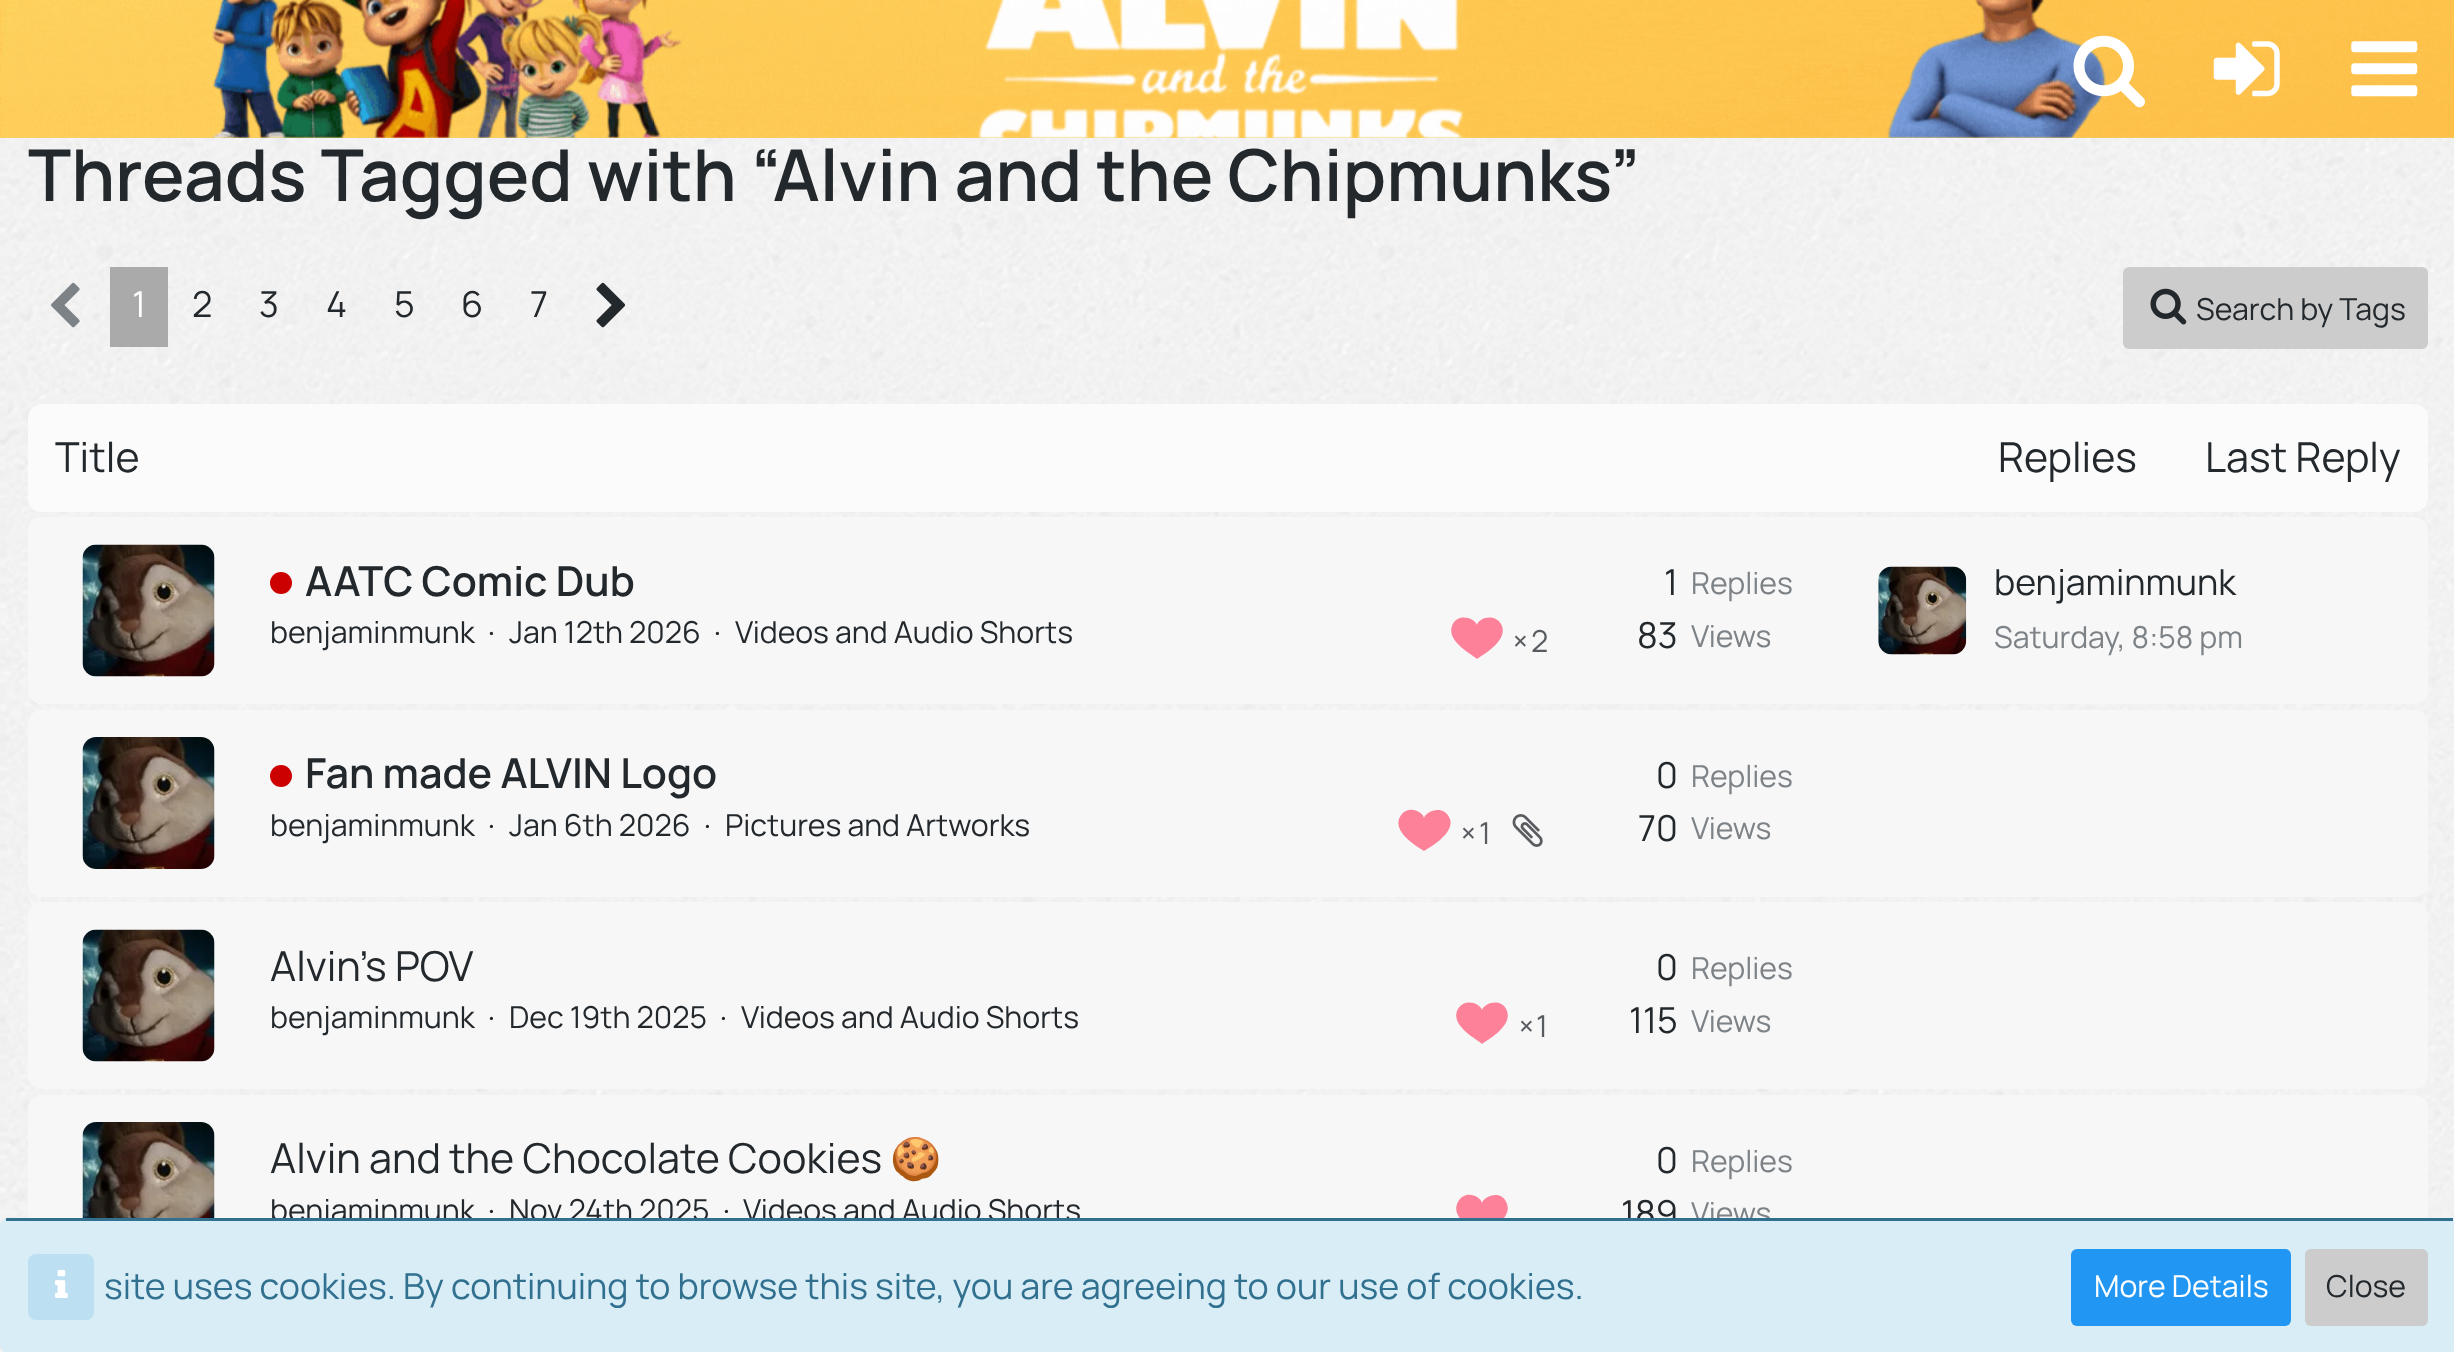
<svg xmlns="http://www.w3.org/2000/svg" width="2454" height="1352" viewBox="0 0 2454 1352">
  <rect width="100%" height="100%" fill="#ffffff"/>
  <image x="0" y="138" width="2454" height="1214" href="img1.png"/>
  <rect x="0" y="136" width="2454" height="2" fill="#f7cd6a"/>
  <image x="0" y="0" width="2454" height="138" href="img2.png"/>
  <image x="2073" y="35" width="72" height="73" href="img3.png"/>
  <image x="2213" y="41" width="67" height="56" href="img4.png"/>
  <image x="2351" y="41" width="67" height="56" href="img5.png"/>
  <text x="28" y="201" font-family="Manrope" font-size="71.5" font-weight="600" fill="#23282d">Threads Tagged with “Alvin and the Chipmunks”</text>
  <image x="51" y="282" width="29" height="46" href="img6.png"/>
  <rect x="110" y="267" width="58" height="80" fill="#aaaaaa"/>
  <text x="132" y="317" font-family="Manrope" font-size="35.75" fill="#ffffff">1</text>
  <text x="192" y="317" font-family="Manrope" font-size="35.75" fill="#23282d">2</text>
  <text x="259" y="317" font-family="Manrope" font-size="35.75" fill="#23282d">3</text>
  <text x="326" y="317" font-family="Manrope" font-size="35.75" fill="#23282d">4</text>
  <text x="394" y="317" font-family="Manrope" font-size="35.75" fill="#23282d">5</text>
  <text x="461" y="317" font-family="Manrope" font-size="35.75" fill="#23282d">6</text>
  <text x="530" y="317" font-family="Manrope" font-size="35.75" fill="#23282d">7</text>
  <image x="596" y="282" width="30" height="46" href="img7.png"/>
  <rect x="2123" y="267" width="305" height="82" rx="6" fill="#cccccc"/>
  <image x="2150" y="288" width="37" height="37" href="img8.png"/>
  <text x="2196" y="320" font-family="Manrope" font-size="30.25" fill="#23282d">Search by Tags</text>
  <rect x="28" y="404" width="2400" height="108" rx="14" fill="#fbfbfb"/>
  <text x="55" y="472" font-family="Manrope" font-size="41.25" fill="#23282d">Title</text>
  <text x="1998" y="472" font-family="Manrope" font-size="41.25" fill="#23282d">Replies</text>
  <text x="2205" y="472" font-family="Manrope" font-size="41.25" fill="#23282d">Last Reply</text>
  <rect x="28" y="517" width="2400" height="187" rx="14" fill="#f7f7f7"/>
  <image x="82" y="544" width="133" height="133" href="img9.png"/>
  <circle cx="281" cy="583" r="11" fill="#cc0001"/>
  <text x="305" y="596" font-family="Manrope" font-size="41.25" font-weight="600" fill="#23282d">AATC Comic Dub</text>
  <text x="270" y="643" font-family="Manrope" font-size="30.25" fill="#23282d">benjaminmunk</text>
  <text x="488" y="643" font-family="Manrope" font-size="30.25" fill="#23282d">·</text>
  <text x="509" y="643" font-family="Manrope" font-size="30.25" fill="#23282d">Jan 12th 2026</text>
  <text x="714" y="643" font-family="Manrope" font-size="30.25" fill="#23282d">·</text>
  <text x="735" y="643" font-family="Manrope" font-size="30.25" fill="#23282d">Videos and Audio Shorts</text>
  <path d="M1502 626C1496 612 1478 618 1477 625C1475 618 1457 612 1452 626C1446 642 1475 656 1477 659C1479 657 1508 642 1502 626" fill="#fd8199"/>
  <text x="1513" y="652" font-family="Manrope" font-size="30.25" fill="#585c60">×</text>
  <text x="1531" y="652" font-family="Manrope" font-size="30.25" fill="#585c60">2</text>
  <text x="1664" y="595" font-family="Manrope" font-size="35.75" fill="#23282d">1</text>
  <text x="1691" y="594" font-family="Manrope" font-size="30.25" fill="#7d8287">Replies</text>
  <text x="1637" y="648" font-family="Manrope" font-size="35.75" fill="#23282d">83</text>
  <text x="1691" y="647" font-family="Manrope" font-size="30.25" fill="#7d8287">Views</text>
  <image x="1878" y="566" width="89" height="89" href="img10.png"/>
  <text x="1994" y="595" font-family="Manrope" font-size="35.75" fill="#23282d">benjaminmunk</text>
  <text x="1994" y="648" font-family="Manrope" font-size="30.25" fill="#7d8287">Saturday, 8:58 pm</text>
  <rect x="28" y="710" width="2400" height="187" rx="14" fill="#f7f7f7"/>
  <image x="82" y="737" width="133" height="132" href="img11.png"/>
  <circle cx="281" cy="776" r="11" fill="#cc0001"/>
  <text x="305" y="788" font-family="Manrope" font-size="41.25" font-weight="600" fill="#23282d">Fan made ALVIN Logo</text>
  <text x="270" y="836" font-family="Manrope" font-size="30.25" fill="#23282d">benjaminmunk</text>
  <text x="488" y="836" font-family="Manrope" font-size="30.25" fill="#23282d">·</text>
  <text x="509" y="836" font-family="Manrope" font-size="30.25" fill="#23282d">Jan 6th 2026</text>
  <text x="704" y="836" font-family="Manrope" font-size="30.25" fill="#23282d">·</text>
  <text x="725" y="836" font-family="Manrope" font-size="30.25" fill="#23282d">Pictures and Artworks</text>
  <path d="M1450 819C1444 804 1426 811 1424 818C1422 810 1405 804 1399 819C1394 835 1422 849 1424 851C1427 849 1455 834 1450 819" fill="#fd8199"/>
  <text x="1461" y="844" font-family="Manrope" font-size="30.25" fill="#585c60">×</text>
  <text x="1479" y="844" font-family="Manrope" font-size="30.25" fill="#585c60">1</text>
  <image x="1512" y="814" width="31" height="33" href="img12.png"/>
  <text x="1656" y="788" font-family="Manrope" font-size="35.75" fill="#23282d">0</text>
  <text x="1691" y="787" font-family="Manrope" font-size="30.25" fill="#7d8287">Replies</text>
  <text x="1638" y="841" font-family="Manrope" font-size="35.75" fill="#23282d">70</text>
  <text x="1691" y="839" font-family="Manrope" font-size="30.25" fill="#7d8287">Views</text>
  <rect x="28" y="902" width="2400" height="187" rx="14" fill="#f7f7f7"/>
  <image x="82" y="929" width="133" height="133" href="img13.png"/>
  <text x="270" y="981" font-family="Manrope" font-size="41.25" fill="#23282d">Alvin's POV</text>
  <text x="270" y="1028" font-family="Manrope" font-size="30.25" fill="#23282d">benjaminmunk</text>
  <text x="488" y="1028" font-family="Manrope" font-size="30.25" fill="#23282d">·</text>
  <text x="509" y="1028" font-family="Manrope" font-size="30.25" fill="#23282d">Dec 19th 2025</text>
  <text x="720" y="1028" font-family="Manrope" font-size="30.25" fill="#23282d">·</text>
  <text x="741" y="1028" font-family="Manrope" font-size="30.25" fill="#23282d">Videos and Audio Shorts</text>
  <path d="M1507 1011C1502 997 1484 1003 1482 1010C1480 1003 1463 997 1457 1011C1451 1027 1480 1041 1482 1044C1484 1042 1513 1027 1507 1011" fill="#fd8199"/>
  <text x="1519" y="1037" font-family="Manrope" font-size="30.25" fill="#585c60">×</text>
  <text x="1536" y="1037" font-family="Manrope" font-size="30.25" fill="#585c60">1</text>
  <text x="1656" y="980" font-family="Manrope" font-size="35.75" fill="#23282d">0</text>
  <text x="1691" y="979" font-family="Manrope" font-size="30.25" fill="#7d8287">Replies</text>
  <text x="1629" y="1033" font-family="Manrope" font-size="35.75" fill="#23282d">115</text>
  <text x="1691" y="1032" font-family="Manrope" font-size="30.25" fill="#7d8287">Views</text>
  <rect x="28" y="1095" width="2400" height="187" rx="14" fill="#f7f7f7"/>
  <image x="82" y="1122" width="133" height="96" href="img14.png"/>
  <text x="270" y="1173" font-family="Manrope" font-size="41.25" fill="#23282d">Alvin and the Chocolate Cookies</text>
  <text x="890" y="1173" font-family="Noto Color Emoji" font-size="41.25" fill="#23282d">🍪</text>
  <text x="270" y="1221" font-family="Manrope" font-size="30.25" fill="#23282d">benjaminmunk</text>
  <text x="488" y="1221" font-family="Manrope" font-size="30.25" fill="#23282d">·</text>
  <text x="509" y="1221" font-family="Manrope" font-size="30.25" fill="#23282d">Nov 24th 2025</text>
  <text x="723" y="1221" font-family="Manrope" font-size="30.25" fill="#23282d">·</text>
  <text x="743" y="1221" font-family="Manrope" font-size="30.25" fill="#23282d">Videos and Audio Shorts</text>
  <path d="M1507 1204C1502 1189 1484 1196 1482 1203C1480 1195 1463 1189 1457 1204C1451 1220 1480 1234 1482 1236C1484 1234 1513 1219 1507 1204" fill="#fd8199"/>
  <text x="1656" y="1173" font-family="Manrope" font-size="35.75" fill="#23282d">0</text>
  <text x="1691" y="1172" font-family="Manrope" font-size="30.25" fill="#7d8287">Replies</text>
  <text x="1621" y="1226" font-family="Manrope" font-size="35.75" fill="#23282d">189</text>
  <text x="1691" y="1224" font-family="Manrope" font-size="30.25" fill="#7d8287">Views</text>
  <rect x="0" y="1218" width="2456" height="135" rx="8" fill="#d9edf7"/>
  <rect x="6" y="1218" width="2447" height="3" fill="#31708f"/>
  <rect x="28" y="1254" width="66" height="66" rx="8" fill="#bcdff1"/>
  <image x="55" y="1269" width="13" height="29" href="img15.png"/>
  <text x="104" y="1299" font-family="Manrope" font-size="35.75" fill="#31708f">site uses cookies. By continuing to browse this site, you are agreeing to our use of cookies.</text>
  <rect x="2071" y="1249" width="220" height="77" rx="6" fill="#2196f3"/>
  <text x="2094" y="1297" font-family="Manrope" font-size="30.25" fill="#ffffff">More Details</text>
  <rect x="2305" y="1249" width="123" height="77" rx="6" fill="#cccccc"/>
  <text x="2326" y="1297" font-family="Manrope" font-size="30.25" fill="#23282d">Close</text>
</svg>
